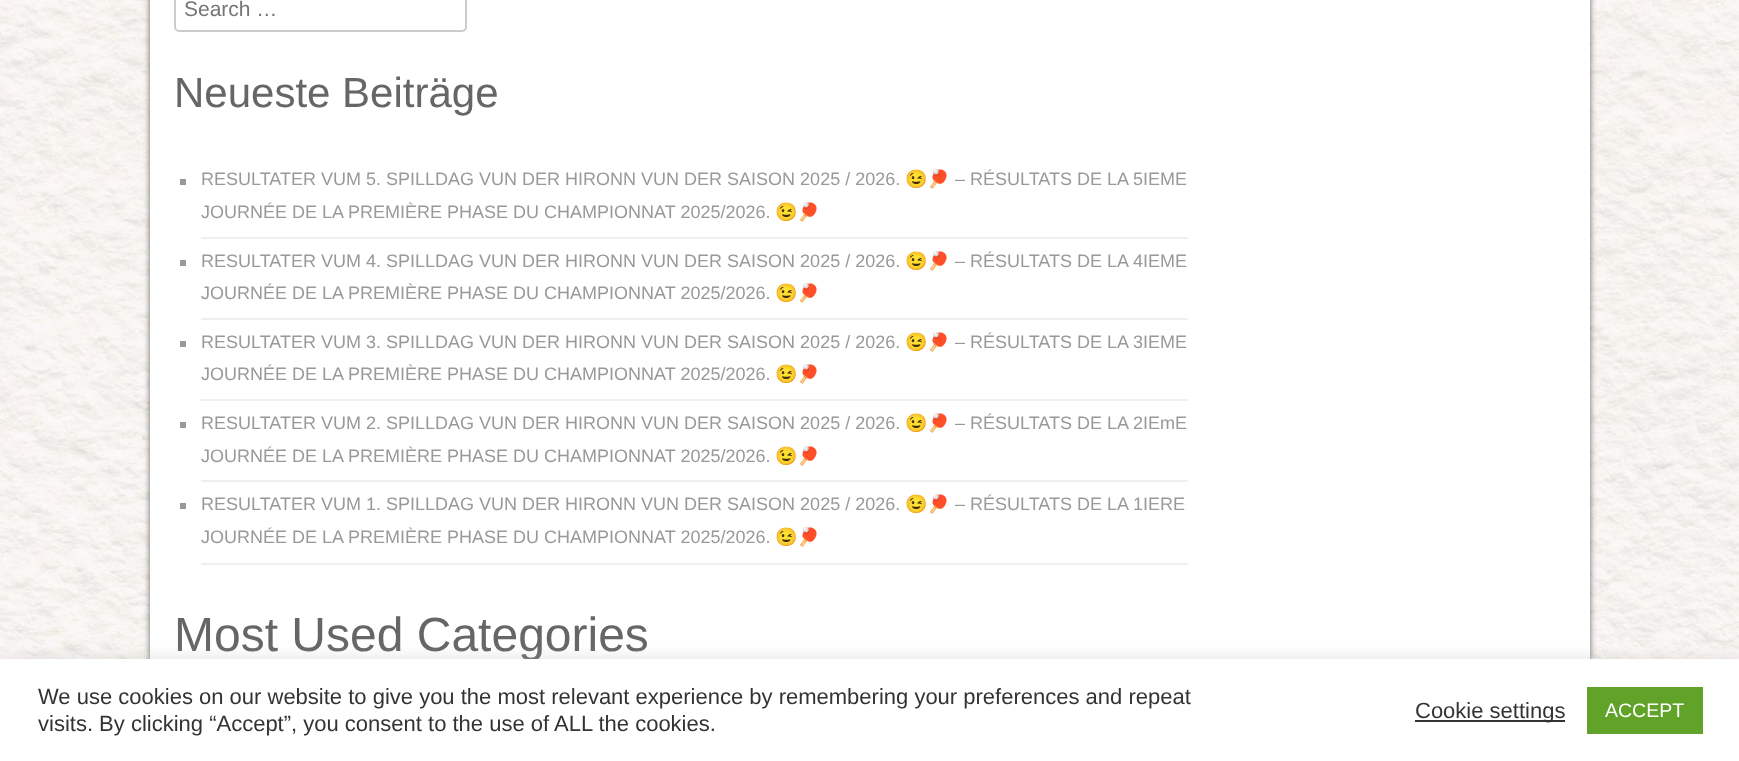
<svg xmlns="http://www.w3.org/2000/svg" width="1739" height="761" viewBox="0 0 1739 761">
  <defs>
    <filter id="blur1" x="-50%" y="-200%" width="200%" height="500%"><feGaussianBlur stdDeviation="3"/></filter>
    <filter id="blur2" x="-50%" y="-200%" width="200%" height="500%"><feGaussianBlur stdDeviation="7.5"/></filter>
  </defs>
  <rect width="100%" height="100%" fill="#ffffff"/>
  <image x="0" y="0" width="1739" height="659" href="img1.png"/>
  <rect x="150" y="-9" width="1440" height="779" fill="#000000" fill-opacity="0.6" filter="url(#blur1)"/>
  <rect x="150" y="0" width="1440" height="659" fill="#ffffff"/>
  <rect x="175" y="-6" width="291" height="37" rx="4" fill="none" stroke="#cccccc" stroke-width="2"/>
  <text x="184" y="16" font-family="Liberation Sans" font-size="21" fill="#757575">Search …</text>
  <text x="174" y="107" font-family="Liberation Sans" font-size="42" fill="#666666">Neueste Beiträge</text>
  <rect x="201" y="237" width="987" height="2" fill="#efefef"/>
  <rect x="180" y="179" width="6" height="6" fill="#999999"/>
  <text x="201" y="185" font-family="Liberation Sans" font-size="18" fill="#999999">RESULTATER VUM 5. SPILLDAG VUN DER HIRONN VUN DER SAISON 2025 / 2026.</text>
  <text x="905" y="185" font-family="Noto Color Emoji" font-size="18" fill="#999999">😉🏓</text>
  <text x="955" y="185" font-family="Liberation Sans" font-size="18" fill="#999999">– RÉSULTATS DE LA 5IEME</text>
  <text x="201" y="218" font-family="Liberation Sans" font-size="18" fill="#999999">JOURNÉE DE LA PREMIÈRE PHASE DU CHAMPIONNAT 2025/2026.</text>
  <text x="775" y="218" font-family="Noto Color Emoji" font-size="18" fill="#999999">😉🏓</text>
  <rect x="201" y="318" width="987" height="2" fill="#efefef"/>
  <rect x="180" y="260" width="6" height="6" fill="#999999"/>
  <text x="201" y="267" font-family="Liberation Sans" font-size="18" fill="#999999">RESULTATER VUM 4. SPILLDAG VUN DER HIRONN VUN DER SAISON 2025 / 2026.</text>
  <text x="905" y="267" font-family="Noto Color Emoji" font-size="18" fill="#999999">😉🏓</text>
  <text x="955" y="267" font-family="Liberation Sans" font-size="18" fill="#999999">– RÉSULTATS DE LA 4IEME</text>
  <text x="201" y="299" font-family="Liberation Sans" font-size="18" fill="#999999">JOURNÉE DE LA PREMIÈRE PHASE DU CHAMPIONNAT 2025/2026.</text>
  <text x="775" y="299" font-family="Noto Color Emoji" font-size="18" fill="#999999">😉🏓</text>
  <rect x="201" y="399" width="987" height="2" fill="#efefef"/>
  <rect x="180" y="341" width="6" height="6" fill="#999999"/>
  <text x="201" y="348" font-family="Liberation Sans" font-size="18" fill="#999999">RESULTATER VUM 3. SPILLDAG VUN DER HIRONN VUN DER SAISON 2025 / 2026.</text>
  <text x="905" y="348" font-family="Noto Color Emoji" font-size="18" fill="#999999">😉🏓</text>
  <text x="955" y="348" font-family="Liberation Sans" font-size="18" fill="#999999">– RÉSULTATS DE LA 3IEME</text>
  <text x="201" y="380" font-family="Liberation Sans" font-size="18" fill="#999999">JOURNÉE DE LA PREMIÈRE PHASE DU CHAMPIONNAT 2025/2026.</text>
  <text x="775" y="380" font-family="Noto Color Emoji" font-size="18" fill="#999999">😉🏓</text>
  <rect x="201" y="480" width="987" height="2" fill="#efefef"/>
  <rect x="180" y="422" width="6" height="6" fill="#999999"/>
  <text x="201" y="429" font-family="Liberation Sans" font-size="18" fill="#999999">RESULTATER VUM 2. SPILLDAG VUN DER HIRONN VUN DER SAISON 2025 / 2026.</text>
  <text x="905" y="429" font-family="Noto Color Emoji" font-size="18" fill="#999999">😉🏓</text>
  <text x="955" y="429" font-family="Liberation Sans" font-size="18" fill="#999999">– RÉSULTATS DE LA 2IEmE</text>
  <text x="201" y="462" font-family="Liberation Sans" font-size="18" fill="#999999">JOURNÉE DE LA PREMIÈRE PHASE DU CHAMPIONNAT 2025/2026.</text>
  <text x="775" y="462" font-family="Noto Color Emoji" font-size="18" fill="#999999">😉🏓</text>
  <rect x="201" y="563" width="987" height="2" fill="#efefef"/>
  <rect x="180" y="503" width="6" height="6" fill="#999999"/>
  <text x="201" y="510" font-family="Liberation Sans" font-size="18" fill="#999999">RESULTATER VUM 1. SPILLDAG VUN DER HIRONN VUN DER SAISON 2025 / 2026.</text>
  <text x="905" y="510" font-family="Noto Color Emoji" font-size="18" fill="#999999">😉🏓</text>
  <text x="955" y="510" font-family="Liberation Sans" font-size="18" fill="#999999">– RÉSULTATS DE LA 1IERE</text>
  <text x="201" y="543" font-family="Liberation Sans" font-size="18" fill="#999999">JOURNÉE DE LA PREMIÈRE PHASE DU CHAMPIONNAT 2025/2026.</text>
  <text x="775" y="543" font-family="Noto Color Emoji" font-size="18" fill="#999999">😉🏓</text>
  <text x="174" y="651" font-family="Liberation Sans" font-size="48" fill="#666666">Most Used Categories</text>
  <rect x="0" y="657" width="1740" height="104" fill="#acabab" fill-opacity="0.3" filter="url(#blur2)"/>
  <rect x="0" y="659" width="1739" height="102" fill="#ffffff"/>
  <text x="38" y="704" font-family="Liberation Sans" font-size="22" fill="#333333">We use cookies on our website to give you the most relevant experience by remembering your preferences and repeat</text>
  <text x="38" y="731" font-family="Liberation Sans" font-size="22" fill="#333333">visits. By clicking “Accept”, you consent to the use of ALL the cookies.</text>
  <rect x="1415" y="720" width="150" height="2" fill="#333333"/>
  <text x="1415" y="718" font-family="Liberation Sans" font-size="22" fill="#333333">Cookie settings</text>
  <rect x="1587" y="687" width="116" height="47" fill="#61a229"/>
  <text x="1605" y="717" font-family="Liberation Sans" font-size="19.5" fill="#ffffff">ACCEPT</text>
</svg>
